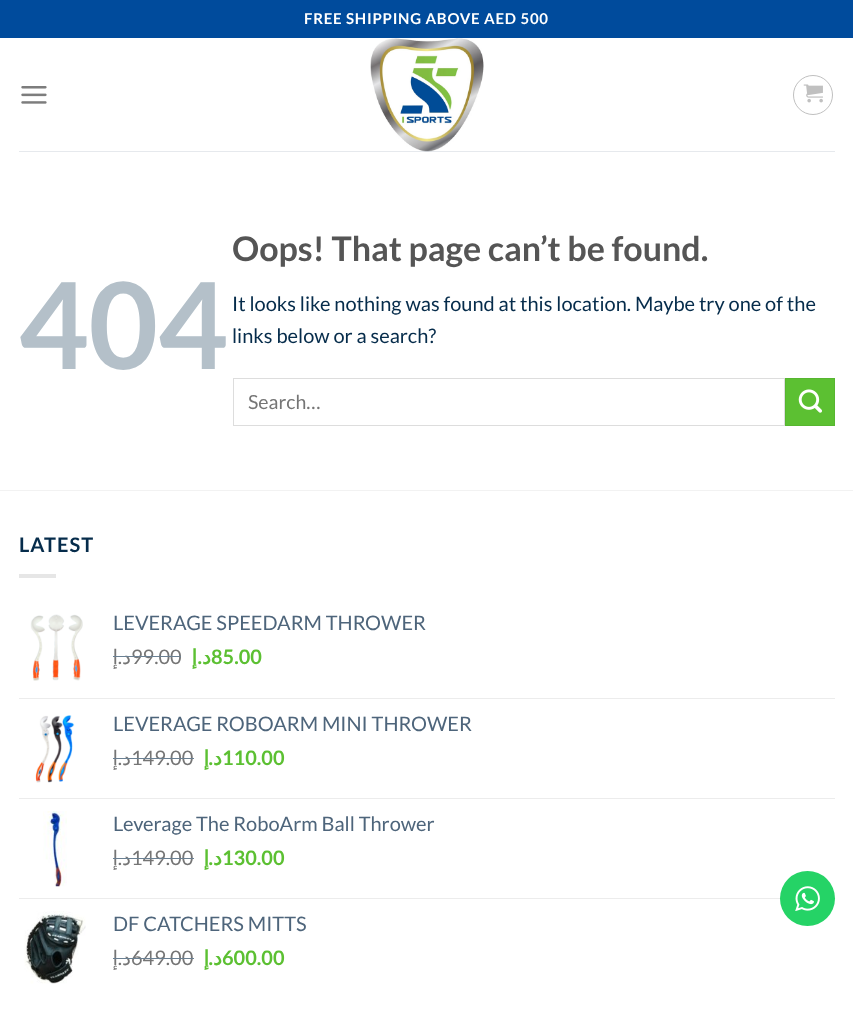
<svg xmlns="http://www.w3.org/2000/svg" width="853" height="1013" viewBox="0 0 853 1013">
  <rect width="100%" height="100%" fill="#ffffff"/>
  <rect x="0" y="0" width="853" height="38" fill="#004b9c"/>
  <text x="304" y="24" font-family="Lato" font-size="15" font-weight="bold" letter-spacing="0.75" fill="#ffffff">FREE SHIPPING ABOVE AED 500</text>
  <image x="21" y="86" width="26" height="18" href="img1.png"/>
  <image x="370" y="38" width="114" height="114" href="img2.png"/>
  <circle cx="813" cy="95" r="19.5" fill="none" stroke="#c0c0c0"/>
  <image x="803" y="84" width="20" height="19" href="img3.png"/>
  <rect x="19" y="151" width="816" height="1" fill="#062c4b" fill-opacity="0.1"/>
  <text x="19" y="369" font-family="Lato" font-size="120" font-weight="bold" fill="#b4c0c9">404</text>
  <text x="232" y="261" font-family="Lato" font-size="34" font-weight="bold" fill="#555555">Oops! That page can’t be found.</text>
  <text x="232" y="311" font-family="Lato" font-size="20" fill="#062c4b">It looks like nothing was found at this location. Maybe try one of the</text>
  <text x="232" y="343" font-family="Lato" font-size="20" fill="#062c4b">links below or a search?</text>
  <rect x="233.5" y="378.5" width="551" height="47" fill="none" stroke="#dddddd"/>
  <text x="248" y="409" font-family="Lato" font-size="19.5" fill="#757575">Search…</text>
  <rect x="785.5" y="378.5" width="49" height="47" fill="#5cc032" stroke="#57b630"/>
  <image x="798" y="389" width="24" height="24" href="img4.png"/>
  <rect x="0" y="490" width="853" height="1" fill="#f2f2f2"/>
  <text x="19" y="552" font-family="Lato" font-size="20" font-weight="bold" letter-spacing="1" fill="#062c4b">LATEST</text>
  <rect x="19" y="574" width="37" height="4" fill="#e6e6e6"/>
  <image x="30" y="614" width="53" height="67" href="img5.png"/>
  <text x="113" y="630" font-family="Lato" font-size="20" fill="#4e657b">LEVERAGE SPEEDARM THROWER</text>
  <text x="118" y="664" font-family="DejaVu Sans" font-size="20" direction="rtl" fill="#757575">إ</text>
  <text x="122" y="664" font-family="Lato" font-size="20" direction="rtl" fill="#757575">.</text>
  <text x="131" y="664" font-family="DejaVu Sans" font-size="20" direction="rtl" fill="#757575">د</text>
  <text x="131" y="664" font-family="Lato" font-size="20" fill="#757575">99.00</text>
  <rect x="131" y="656" width="50" height="1" fill="#6a8093"/>
  <rect x="113" y="656" width="18" height="1" fill="#6a8093"/>
  <text x="197" y="664" font-family="DejaVu Sans" font-size="20" font-weight="bold" direction="rtl" fill="#5cc032">إ</text>
  <text x="202" y="664" font-family="Lato" font-size="20" font-weight="bold" direction="rtl" fill="#5cc032">.</text>
  <text x="211" y="664" font-family="DejaVu Sans" font-size="20" font-weight="bold" direction="rtl" fill="#5cc032">د</text>
  <text x="211" y="664" font-family="Lato" font-size="20" font-weight="bold" fill="#5cc032">85.00</text>
  <rect x="19" y="698" width="816" height="1" fill="#ececec"/>
  <image x="35" y="715" width="40" height="68" href="img6.png"/>
  <text x="113" y="731" font-family="Lato" font-size="20" fill="#4e657b">LEVERAGE ROBOARM MINI THROWER</text>
  <text x="118" y="765" font-family="DejaVu Sans" font-size="20" direction="rtl" fill="#757575">إ</text>
  <text x="131" y="765" font-family="DejaVu Sans" font-size="20" direction="rtl" fill="#757575">د</text>
  <rect x="113" y="758" width="18" height="1" fill="#6a8093"/>
  <text x="122" y="765" font-family="Lato" font-size="20" direction="rtl" fill="#757575">.</text>
  <text x="131" y="765" font-family="Lato" font-size="20" fill="#757575">149.00</text>
  <rect x="131" y="758" width="63" height="1" fill="#6a8093"/>
  <text x="209" y="765" font-family="DejaVu Sans" font-size="20" font-weight="bold" direction="rtl" fill="#5cc032">إ</text>
  <text x="213" y="765" font-family="Lato" font-size="20" font-weight="bold" direction="rtl" fill="#5cc032">.</text>
  <text x="222" y="765" font-family="DejaVu Sans" font-size="20" font-weight="bold" direction="rtl" fill="#5cc032">د</text>
  <text x="222" y="765" font-family="Lato" font-size="20" font-weight="bold" fill="#5cc032">110.00</text>
  <rect x="19" y="798" width="816" height="1" fill="#ececec"/>
  <image x="43" y="811" width="24" height="76" href="img7.png"/>
  <text x="113" y="831" font-family="Lato" font-size="20" fill="#4e657b">Leverage The RoboArm Ball Thrower</text>
  <text x="118" y="865" font-family="DejaVu Sans" font-size="20" direction="rtl" fill="#757575">إ</text>
  <text x="131" y="865" font-family="DejaVu Sans" font-size="20" direction="rtl" fill="#757575">د</text>
  <rect x="113" y="858" width="18" height="1" fill="#6a8093"/>
  <text x="122" y="865" font-family="Lato" font-size="20" direction="rtl" fill="#757575">.</text>
  <text x="131" y="865" font-family="Lato" font-size="20" fill="#757575">149.00</text>
  <rect x="131" y="858" width="63" height="1" fill="#6a8093"/>
  <text x="209" y="865" font-family="DejaVu Sans" font-size="20" font-weight="bold" direction="rtl" fill="#5cc032">إ</text>
  <text x="213" y="865" font-family="Lato" font-size="20" font-weight="bold" direction="rtl" fill="#5cc032">.</text>
  <text x="222" y="865" font-family="DejaVu Sans" font-size="20" font-weight="bold" direction="rtl" fill="#5cc032">د</text>
  <text x="222" y="865" font-family="Lato" font-size="20" font-weight="bold" fill="#5cc032">130.00</text>
  <rect x="19" y="898" width="816" height="1" fill="#ececec"/>
  <image x="24" y="911" width="62" height="73" href="img8.png"/>
  <text x="113" y="931" font-family="Lato" font-size="20" fill="#4e657b">DF CATCHERS MITTS</text>
  <text x="118" y="965" font-family="DejaVu Sans" font-size="20" direction="rtl" fill="#757575">إ</text>
  <text x="122" y="965" font-family="Lato" font-size="20" direction="rtl" fill="#757575">.</text>
  <text x="131" y="965" font-family="DejaVu Sans" font-size="20" direction="rtl" fill="#757575">د</text>
  <text x="131" y="965" font-family="Lato" font-size="20" fill="#757575">649.00</text>
  <rect x="131" y="958" width="63" height="1" fill="#6a8093"/>
  <rect x="113" y="958" width="18" height="1" fill="#6a8093"/>
  <text x="209" y="965" font-family="DejaVu Sans" font-size="20" font-weight="bold" direction="rtl" fill="#5cc032">إ</text>
  <text x="213" y="965" font-family="Lato" font-size="20" font-weight="bold" direction="rtl" fill="#5cc032">.</text>
  <text x="222" y="965" font-family="DejaVu Sans" font-size="20" font-weight="bold" direction="rtl" fill="#5cc032">د</text>
  <text x="222" y="965" font-family="Lato" font-size="20" font-weight="bold" fill="#5cc032">600.00</text>
  <circle cx="807.5" cy="898.5" r="27.5" fill="#25d366"/>
  <image x="795" y="886" width="25" height="25" href="img9.png"/>
</svg>
